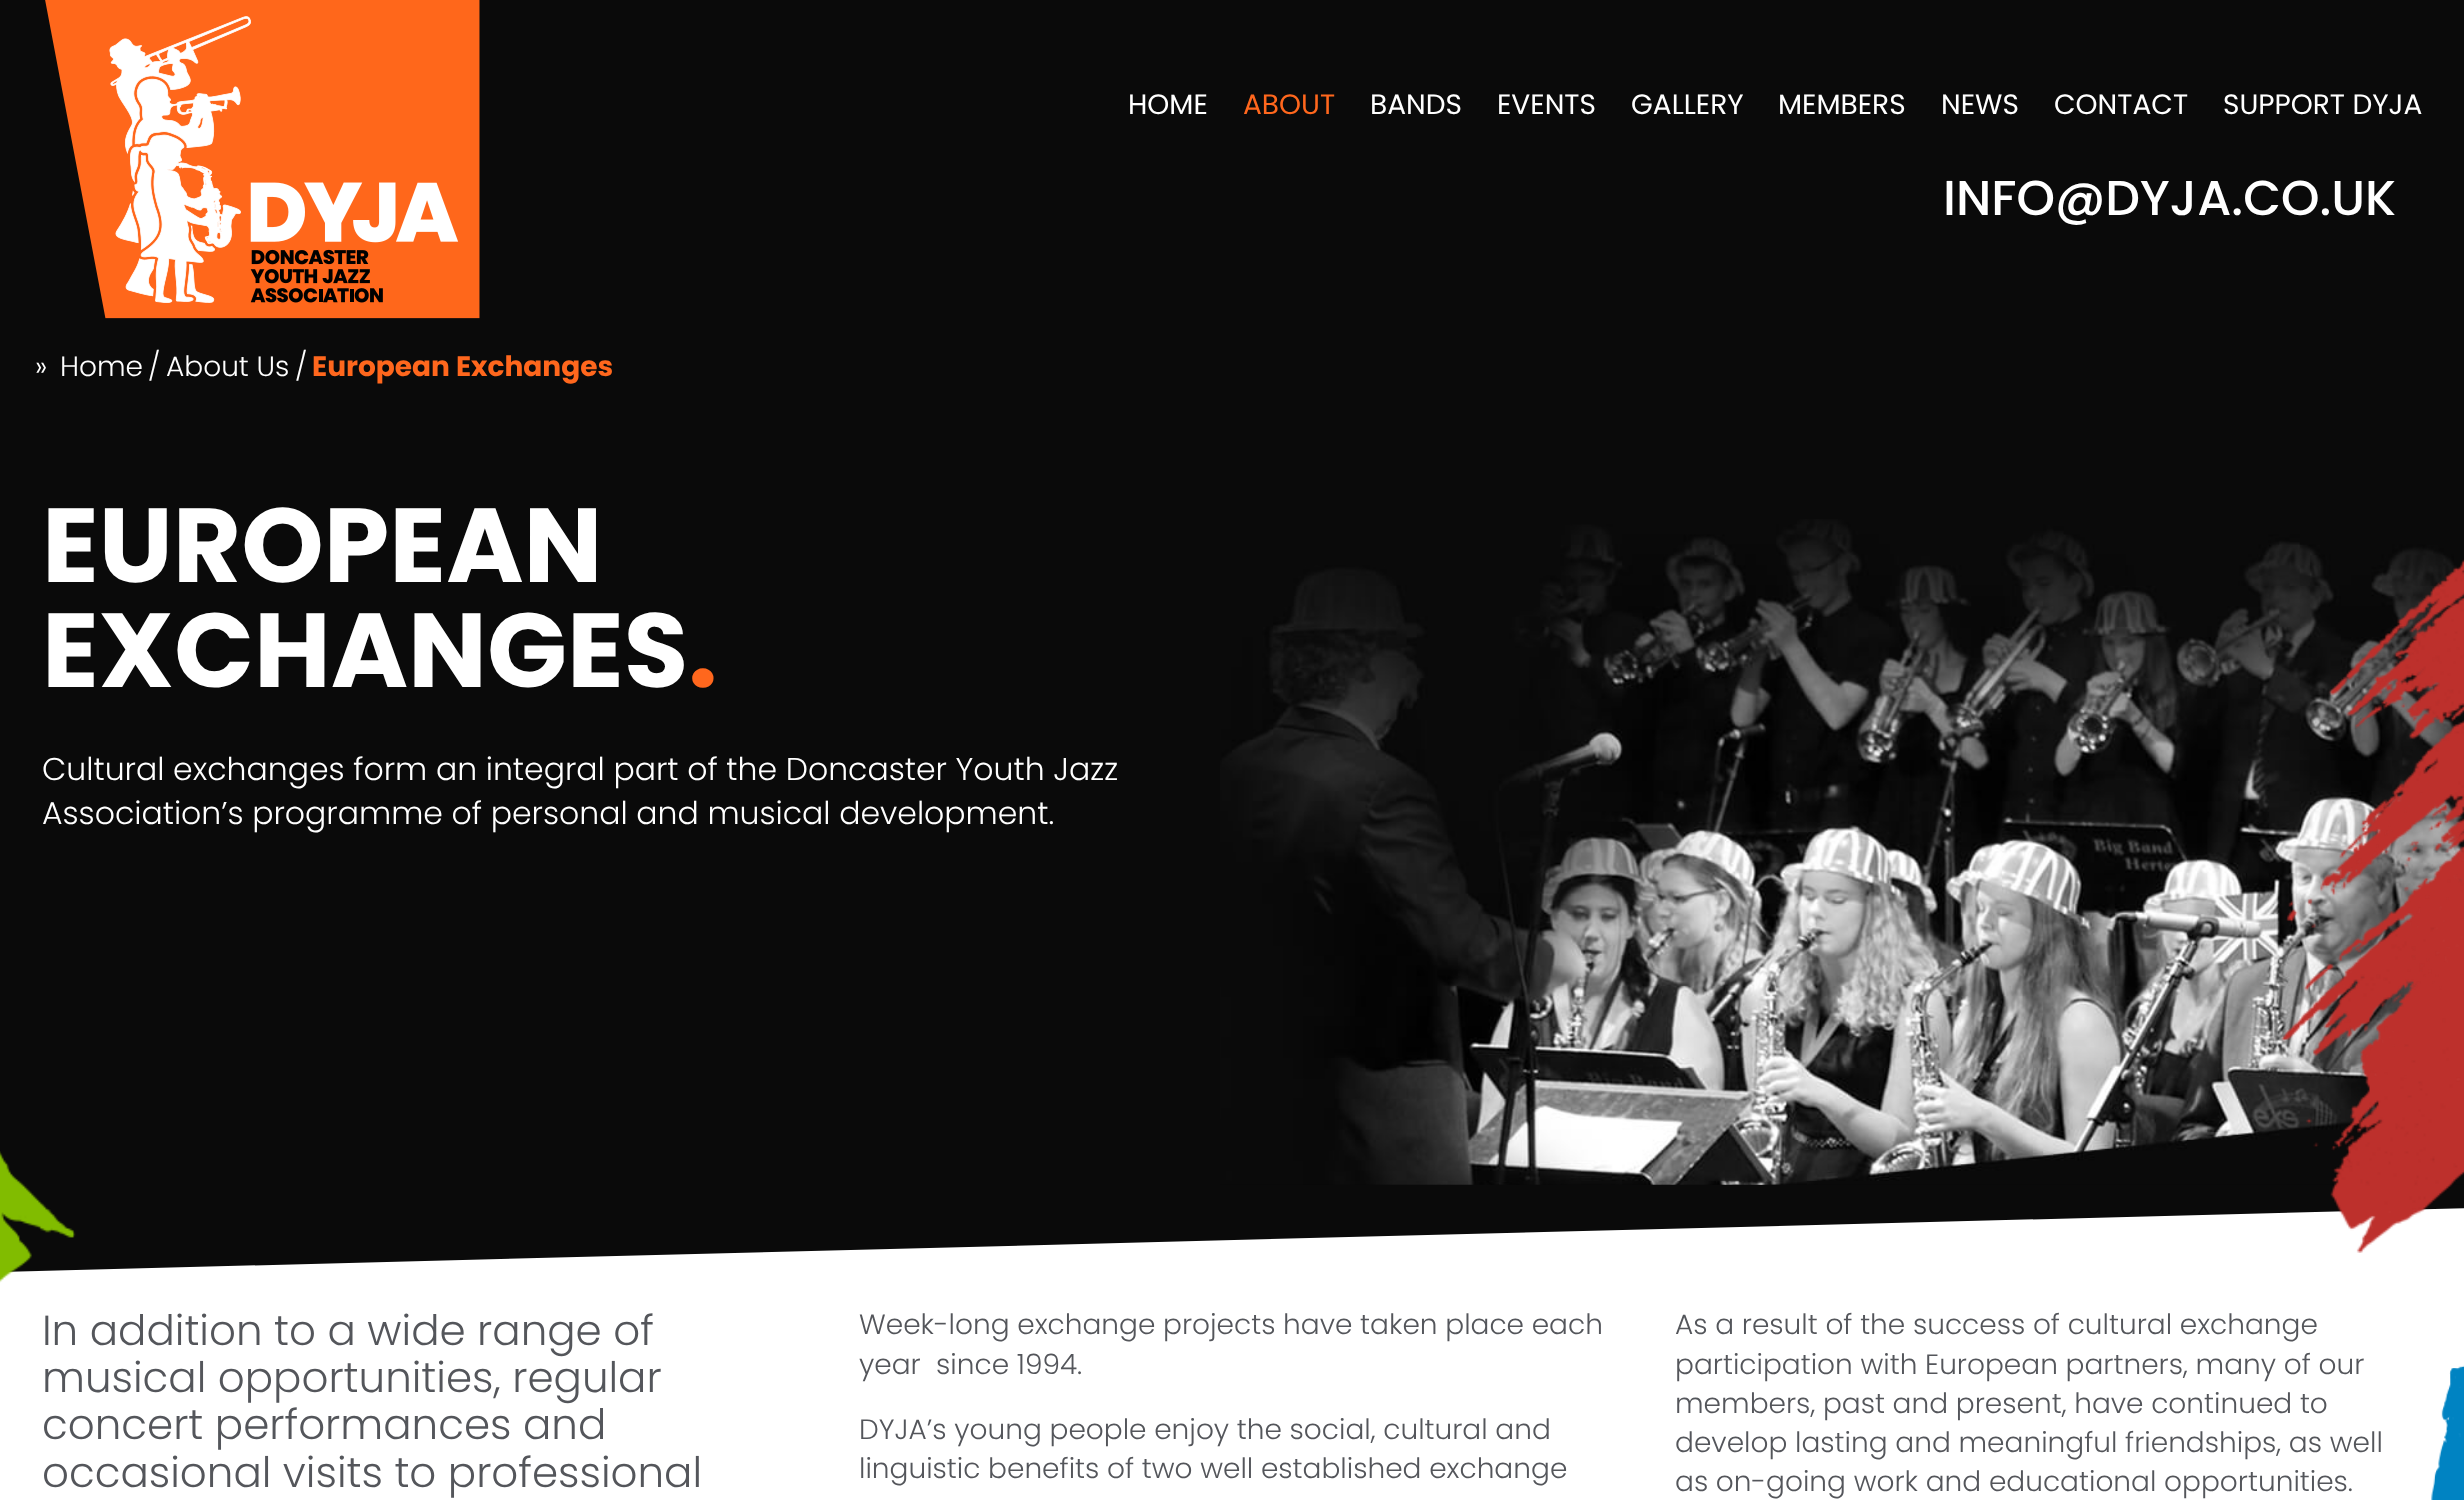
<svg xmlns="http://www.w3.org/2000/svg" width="2464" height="1500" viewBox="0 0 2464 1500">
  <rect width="100%" height="100%" fill="#0a0a0a"/>
  <image x="45" y="0" width="435" height="319" href="img1.png"/>
  <text x="1128" y="114" font-family="Poppins" font-size="28" fill="#ffffff">HOME</text>
  <text x="1243" y="114" font-family="Poppins" font-size="28" fill="#ff671d">ABOUT</text>
  <text x="1370" y="114" font-family="Poppins" font-size="28" fill="#ffffff">BANDS</text>
  <text x="1497" y="114" font-family="Poppins" font-size="28" fill="#ffffff">EVENTS</text>
  <text x="1631" y="114" font-family="Poppins" font-size="28" fill="#ffffff">GALLERY</text>
  <text x="1778" y="114" font-family="Poppins" font-size="28" fill="#ffffff">MEMBERS</text>
  <text x="1941" y="114" font-family="Poppins" font-size="28" fill="#ffffff">NEWS</text>
  <text x="2054" y="114" font-family="Poppins" font-size="28" fill="#ffffff">CONTACT</text>
  <text x="2223" y="114" font-family="Poppins" font-size="28" fill="#ffffff">SUPPORT DYJA</text>
  <text x="1943" y="215" font-family="Poppins" font-size="49" font-weight="500" fill="#ffffff">INFO@DYJA.CO.UK</text>
  <rect x="0" y="1208" width="2464" height="292" fill="#ffffff"/>
  <text x="35" y="376" font-family="Poppins" font-size="28" font-weight="300" fill="#ffffff">»</text>
  <text x="60" y="376" font-family="Poppins" font-size="28" font-weight="300" fill="#ffffff">Home</text>
  <text x="148" y="376" font-family="Poppins" font-size="28" font-weight="300" fill="#ffffff">/</text>
  <text x="166" y="376" font-family="Poppins" font-size="28" font-weight="300" fill="#ffffff">About Us</text>
  <text x="295" y="376" font-family="Poppins" font-size="28" font-weight="300" fill="#ffffff">/</text>
  <text x="312" y="376" font-family="Poppins" font-size="28" font-weight="bold" fill="#ff671d">European Exchanges</text>
  <path d="M0 1185H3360L0 1272Z" fill="#0a0a0a"/>
  <image x="0" y="1151" width="76" height="132" href="img2.png"/>
  <image x="1220" y="519" width="1244" height="666" href="img3.png"/>
  <text x="42" y="582" font-family="Poppins" font-size="105" font-weight="bold" fill="#ffffff">EUROPEAN</text>
  <text x="42" y="687" font-family="Poppins" font-size="105" font-weight="bold" fill="#ffffff">EXCHANGES</text>
  <text x="688" y="687" font-family="Poppins" font-size="105" font-weight="bold" fill="#ff671d">.</text>
  <text x="42" y="780" font-family="Poppins" font-size="31.5" font-weight="300" fill="#ffffff">Cultural exchanges form an integral part of the Doncaster Youth Jazz</text>
  <text x="42" y="824" font-family="Poppins" font-size="31.5" font-weight="300" fill="#ffffff">Association’s programme of personal and musical development.</text>
  <image x="2281" y="559" width="183" height="694" href="img4.png"/>
  <text x="42" y="1345" font-family="Poppins" font-size="42" font-weight="300" fill="#54565b">In addition to a wide range of</text>
  <text x="42" y="1392" font-family="Poppins" font-size="42" font-weight="300" fill="#54565b">musical opportunities, regular</text>
  <text x="42" y="1439" font-family="Poppins" font-size="42" font-weight="300" fill="#54565b">concert performances and</text>
  <text x="42" y="1487" font-family="Poppins" font-size="42" font-weight="300" fill="#54565b">occasional visits to professional</text>
  <text x="859" y="1334" font-family="Poppins" font-size="28" font-weight="300" fill="#54565b">Week-long exchange projects have taken place each</text>
  <text x="859" y="1374" font-family="Poppins" font-size="28" font-weight="300" fill="#54565b" xml:space="preserve">year  since 1994.</text>
  <text x="859" y="1439" font-family="Poppins" font-size="28" font-weight="300" fill="#54565b">DYJA’s young people enjoy the social, cultural and</text>
  <text x="859" y="1478" font-family="Poppins" font-size="28" font-weight="300" fill="#54565b">linguistic benefits of two well established exchange</text>
  <text x="1675" y="1334" font-family="Poppins" font-size="28" font-weight="300" fill="#54565b">As a result of the success of cultural exchange</text>
  <text x="1675" y="1374" font-family="Poppins" font-size="28" font-weight="300" fill="#54565b">participation with European partners, many of our</text>
  <text x="1675" y="1413" font-family="Poppins" font-size="28" font-weight="300" fill="#54565b">members, past and present, have continued to</text>
  <text x="1675" y="1452" font-family="Poppins" font-size="28" font-weight="300" fill="#54565b">develop lasting and meaningful friendships, as well</text>
  <text x="1675" y="1491" font-family="Poppins" font-size="28" font-weight="300" fill="#54565b">as on-going work and educational opportunities.</text>
  <image x="2431" y="1365" width="33" height="135" href="img5.png"/>
</svg>
